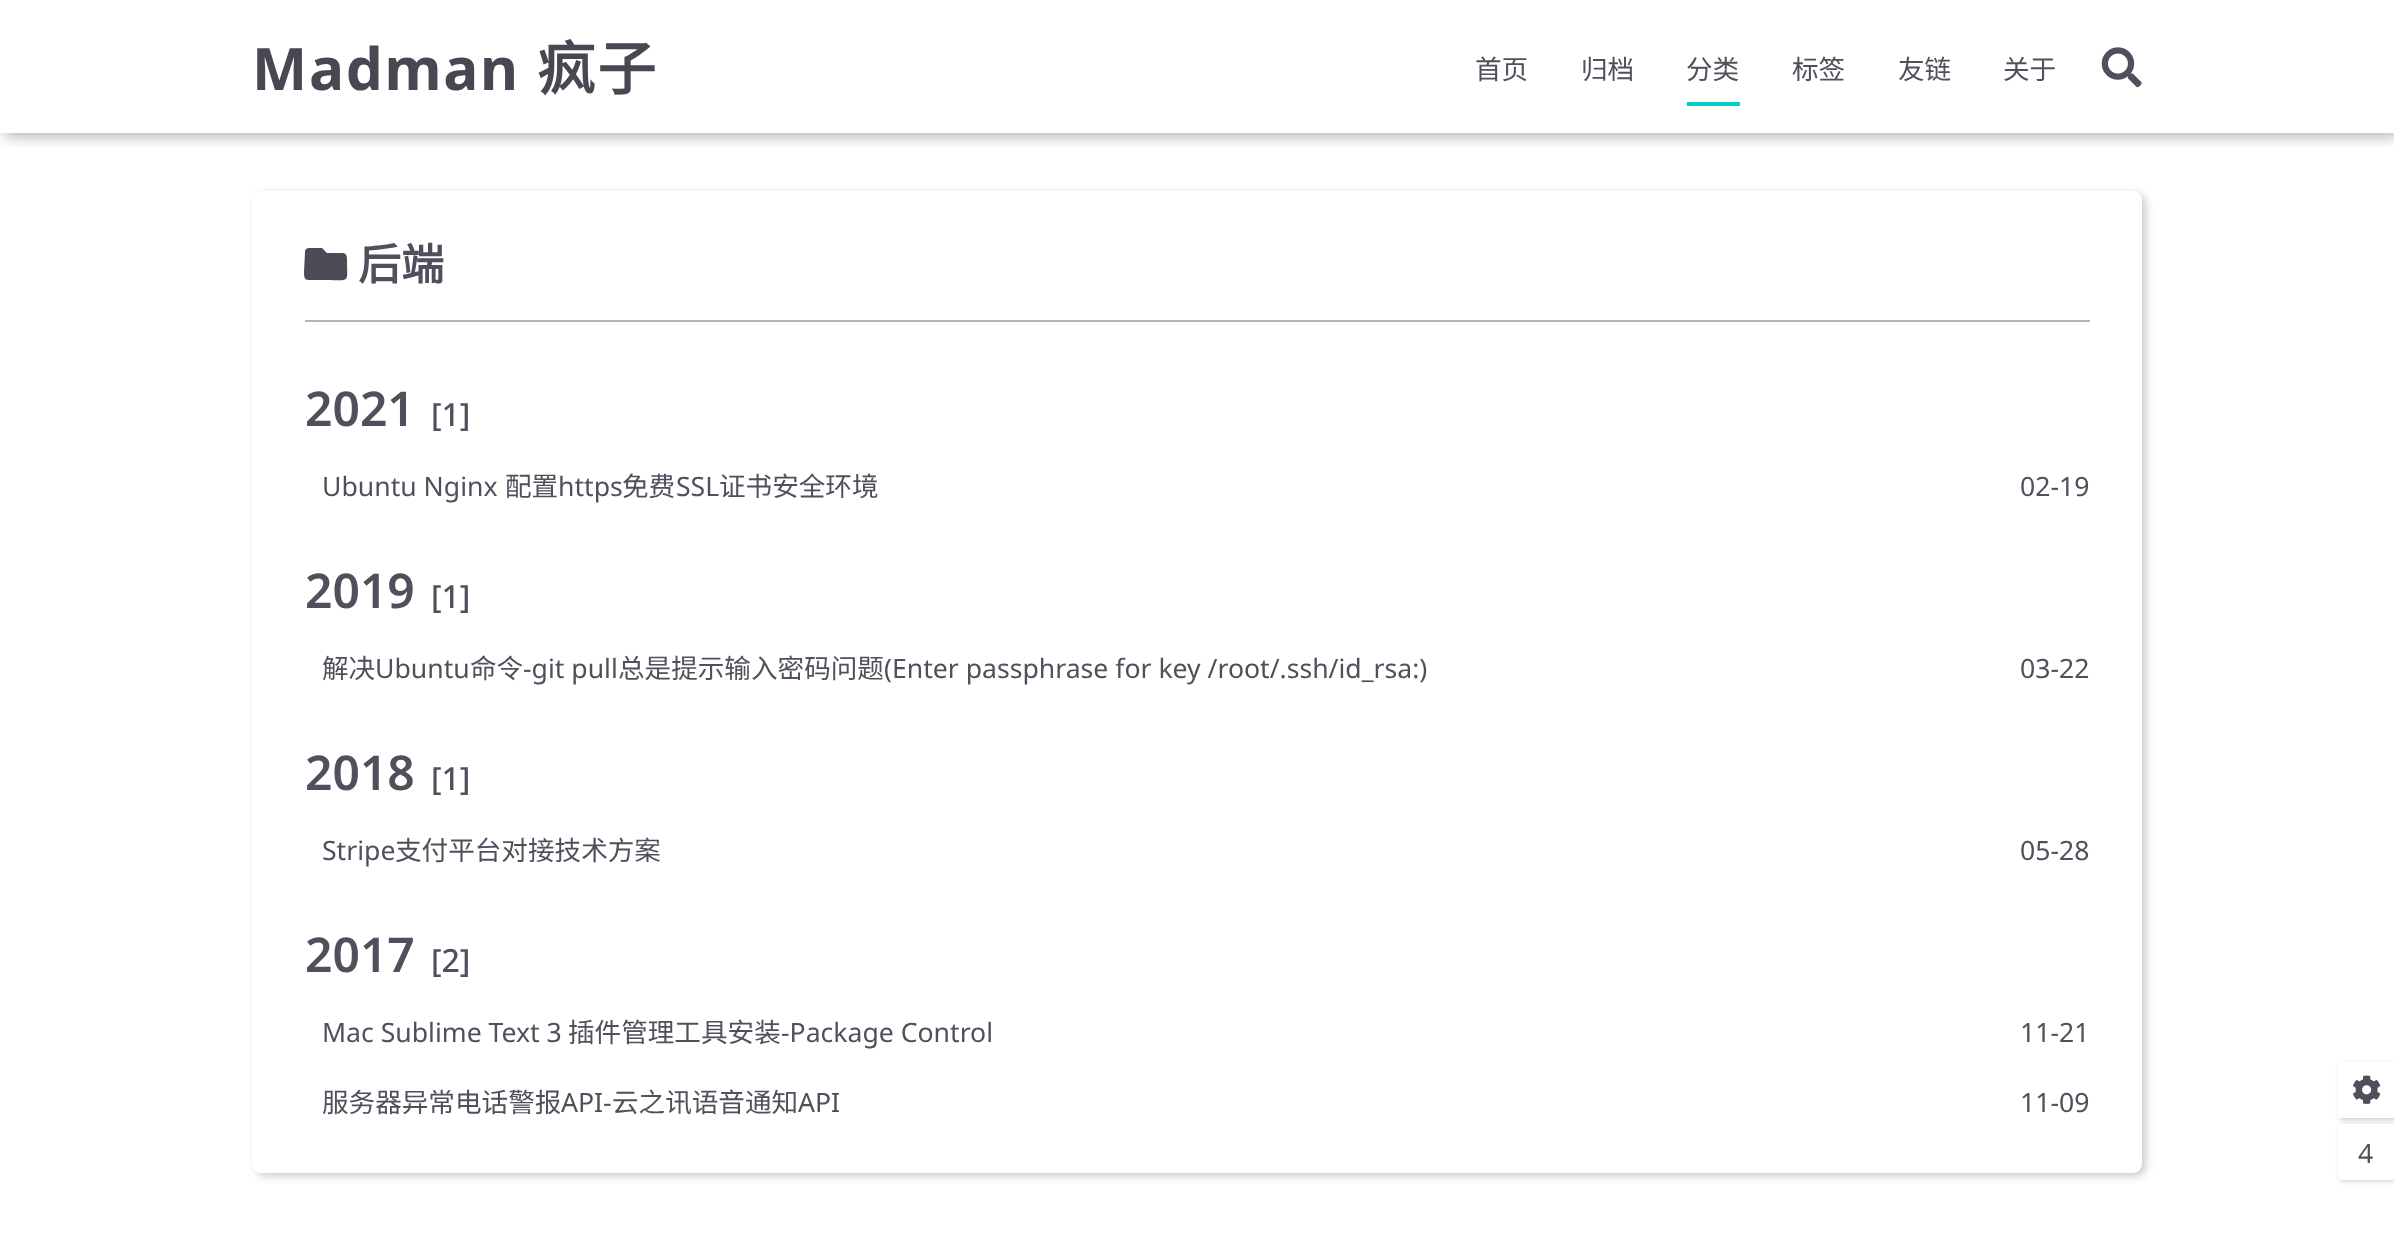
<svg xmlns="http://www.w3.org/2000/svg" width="2394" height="1247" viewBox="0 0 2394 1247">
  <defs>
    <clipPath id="clip1"><rect x="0" y="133" width="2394" height="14"/></clipPath>
    <filter id="blur1" x="-50%" y="-200%" width="200%" height="500%"><feGaussianBlur stdDeviation="7"/></filter>
    <filter id="blur2" x="-50%" y="-200%" width="200%" height="500%"><feGaussianBlur stdDeviation="4.5"/></filter>
    <filter id="blur3" x="-50%" y="-200%" width="200%" height="500%"><feGaussianBlur stdDeviation="2.5"/></filter>
  </defs>
  <rect width="100%" height="100%" fill="#ffffff"/>
  <g clip-path="url(#clip1)">
    <rect x="4" y="4" width="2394" height="133" fill="#000000" fill-opacity="0.28" filter="url(#blur1)"/>
  </g>
  <text x="252" y="90" font-family="Noto Sans" font-size="58.5" font-weight="bold" letter-spacing="1.75" fill="#484853">Madman</text>
  <text x="537" y="90" font-family="Noto Sans CJK SC" font-size="58.5" font-weight="bold" letter-spacing="1.75" fill="#484853">疯子</text>
  <text x="1475" y="79" font-family="Noto Sans CJK SC" font-size="26.6" fill="#50505c">首页</text>
  <text x="1581" y="79" font-family="Noto Sans CJK SC" font-size="26.6" fill="#50505c">归档</text>
  <text x="1686" y="79" font-family="Noto Sans CJK SC" font-size="26.6" fill="#50505c">分类</text>
  <rect x="1687" y="102" width="53" height="4" fill="#00cccc"/>
  <text x="1792" y="79" font-family="Noto Sans CJK SC" font-size="26.6" fill="#50505c">标签</text>
  <text x="1898" y="79" font-family="Noto Sans CJK SC" font-size="26.6" fill="#50505c">友链</text>
  <text x="2003" y="79" font-family="Noto Sans CJK SC" font-size="26.6" fill="#50505c">关于</text>
  <image x="2101" y="47" width="41" height="41" href="img1.png"/>
  <rect x="256" y="194" width="1890" height="982" rx="9" fill="#000000" fill-opacity="0.2" filter="url(#blur2)"/>
  <rect x="252" y="191" width="1890" height="982" rx="9" fill="#ffffff"/>
  <rect x="305" y="320" width="1785" height="2" fill="#b3b3b3"/>
  <path d="M343 253C347 253 347 258 347 260C347 284 351 280 326 280H314C306 280 304 281 304 272L305 252C305 247 310 248 313 248H322L327 253Z" fill="#4c4c57"/>
  <text x="358" y="280" font-family="Noto Sans CJK SC" font-size="43" font-weight="bold" fill="#50505c">后端</text>
  <text x="305" y="426" font-family="Noto Sans" font-size="48" font-weight="600" fill="#50505c">2021</text>
  <text x="431" y="426" font-family="Noto Sans" font-size="32" font-weight="500" fill="#50505c">[1]</text>
  <text x="322" y="496" font-family="Noto Sans" font-size="26.6" fill="#50505c">Ubuntu Nginx</text>
  <text x="505" y="496" font-family="Noto Sans CJK SC" font-size="26.6" fill="#50505c">配置</text>
  <text x="558" y="496" font-family="Noto Sans" font-size="26.6" fill="#50505c">https</text>
  <text x="622" y="496" font-family="Noto Sans CJK SC" font-size="26.6" fill="#50505c">免费</text>
  <text x="676" y="496" font-family="Noto Sans" font-size="26.6" fill="#50505c">SSL</text>
  <text x="719" y="496" font-family="Noto Sans CJK SC" font-size="26.6" fill="#50505c">证书安全环境</text>
  <text x="2020" y="496" font-family="Noto Sans" font-size="26.6" fill="#50505c">02-19</text>
  <text x="305" y="608" font-family="Noto Sans" font-size="48" font-weight="600" fill="#50505c">2019</text>
  <text x="431" y="608" font-family="Noto Sans" font-size="32" font-weight="500" fill="#50505c">[1]</text>
  <text x="322" y="678" font-family="Noto Sans CJK SC" font-size="26.6" fill="#50505c">解决</text>
  <text x="375" y="678" font-family="Noto Sans" font-size="26.6" fill="#50505c">Ubuntu</text>
  <text x="470" y="678" font-family="Noto Sans CJK SC" font-size="26.6" fill="#50505c">命令</text>
  <text x="523" y="678" font-family="Noto Sans" font-size="26.6" fill="#50505c">-git pull</text>
  <text x="618" y="678" font-family="Noto Sans CJK SC" font-size="26.6" fill="#50505c">总是提示输入密码问题</text>
  <text x="884" y="678" font-family="Noto Sans" font-size="26.6" fill="#50505c">(Enter passphrase for key /root/.ssh/id_rsa:)</text>
  <text x="2020" y="678" font-family="Noto Sans" font-size="26.6" fill="#50505c">03-22</text>
  <text x="305" y="790" font-family="Noto Sans" font-size="48" font-weight="600" fill="#50505c">2018</text>
  <text x="431" y="790" font-family="Noto Sans" font-size="32" font-weight="500" fill="#50505c">[1]</text>
  <text x="322" y="860" font-family="Noto Sans" font-size="26.6" fill="#50505c">Stripe</text>
  <text x="395" y="860" font-family="Noto Sans CJK SC" font-size="26.6" fill="#50505c">支付平台对接技术方案</text>
  <text x="2020" y="860" font-family="Noto Sans" font-size="26.6" fill="#50505c">05-28</text>
  <text x="305" y="972" font-family="Noto Sans" font-size="48" font-weight="600" fill="#50505c">2017</text>
  <text x="431" y="972" font-family="Noto Sans" font-size="32" font-weight="500" fill="#50505c">[2]</text>
  <text x="322" y="1042" font-family="Noto Sans" font-size="26.6" fill="#50505c">Mac Sublime Text 3</text>
  <text x="568" y="1042" font-family="Noto Sans CJK SC" font-size="26.6" fill="#50505c">插件管理工具安装</text>
  <text x="781" y="1042" font-family="Noto Sans" font-size="26.6" fill="#50505c">-Package Control</text>
  <text x="2020" y="1042" font-family="Noto Sans" font-size="26.6" fill="#50505c">11-21</text>
  <text x="322" y="1112" font-family="Noto Sans CJK SC" font-size="26.6" fill="#50505c">服务器异常电话警报</text>
  <text x="561" y="1112" font-family="Noto Sans" font-size="26.6" fill="#50505c">API-</text>
  <text x="612" y="1112" font-family="Noto Sans CJK SC" font-size="26.6" fill="#50505c">云之讯语音通知</text>
  <text x="798" y="1112" font-family="Noto Sans" font-size="26.6" fill="#50505c">API</text>
  <text x="2020" y="1112" font-family="Noto Sans" font-size="26.6" fill="#50505c">11-09</text>
  <rect x="2340" y="1064" width="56" height="56" rx="2" fill="#000000" fill-opacity="0.2" filter="url(#blur3)"/>
  <rect x="2338" y="1062" width="56" height="56" rx="2" fill="#ffffff"/>
  <image x="2353" y="1075" width="28" height="29" href="img2.png"/>
  <rect x="2340" y="1125" width="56" height="56" rx="2" fill="#000000" fill-opacity="0.2" filter="url(#blur3)"/>
  <rect x="2338" y="1124" width="56" height="56" rx="2" fill="#ffffff"/>
  <text x="2358" y="1163" font-family="Noto Sans" font-size="26.6" fill="#50505c">4</text>
</svg>
